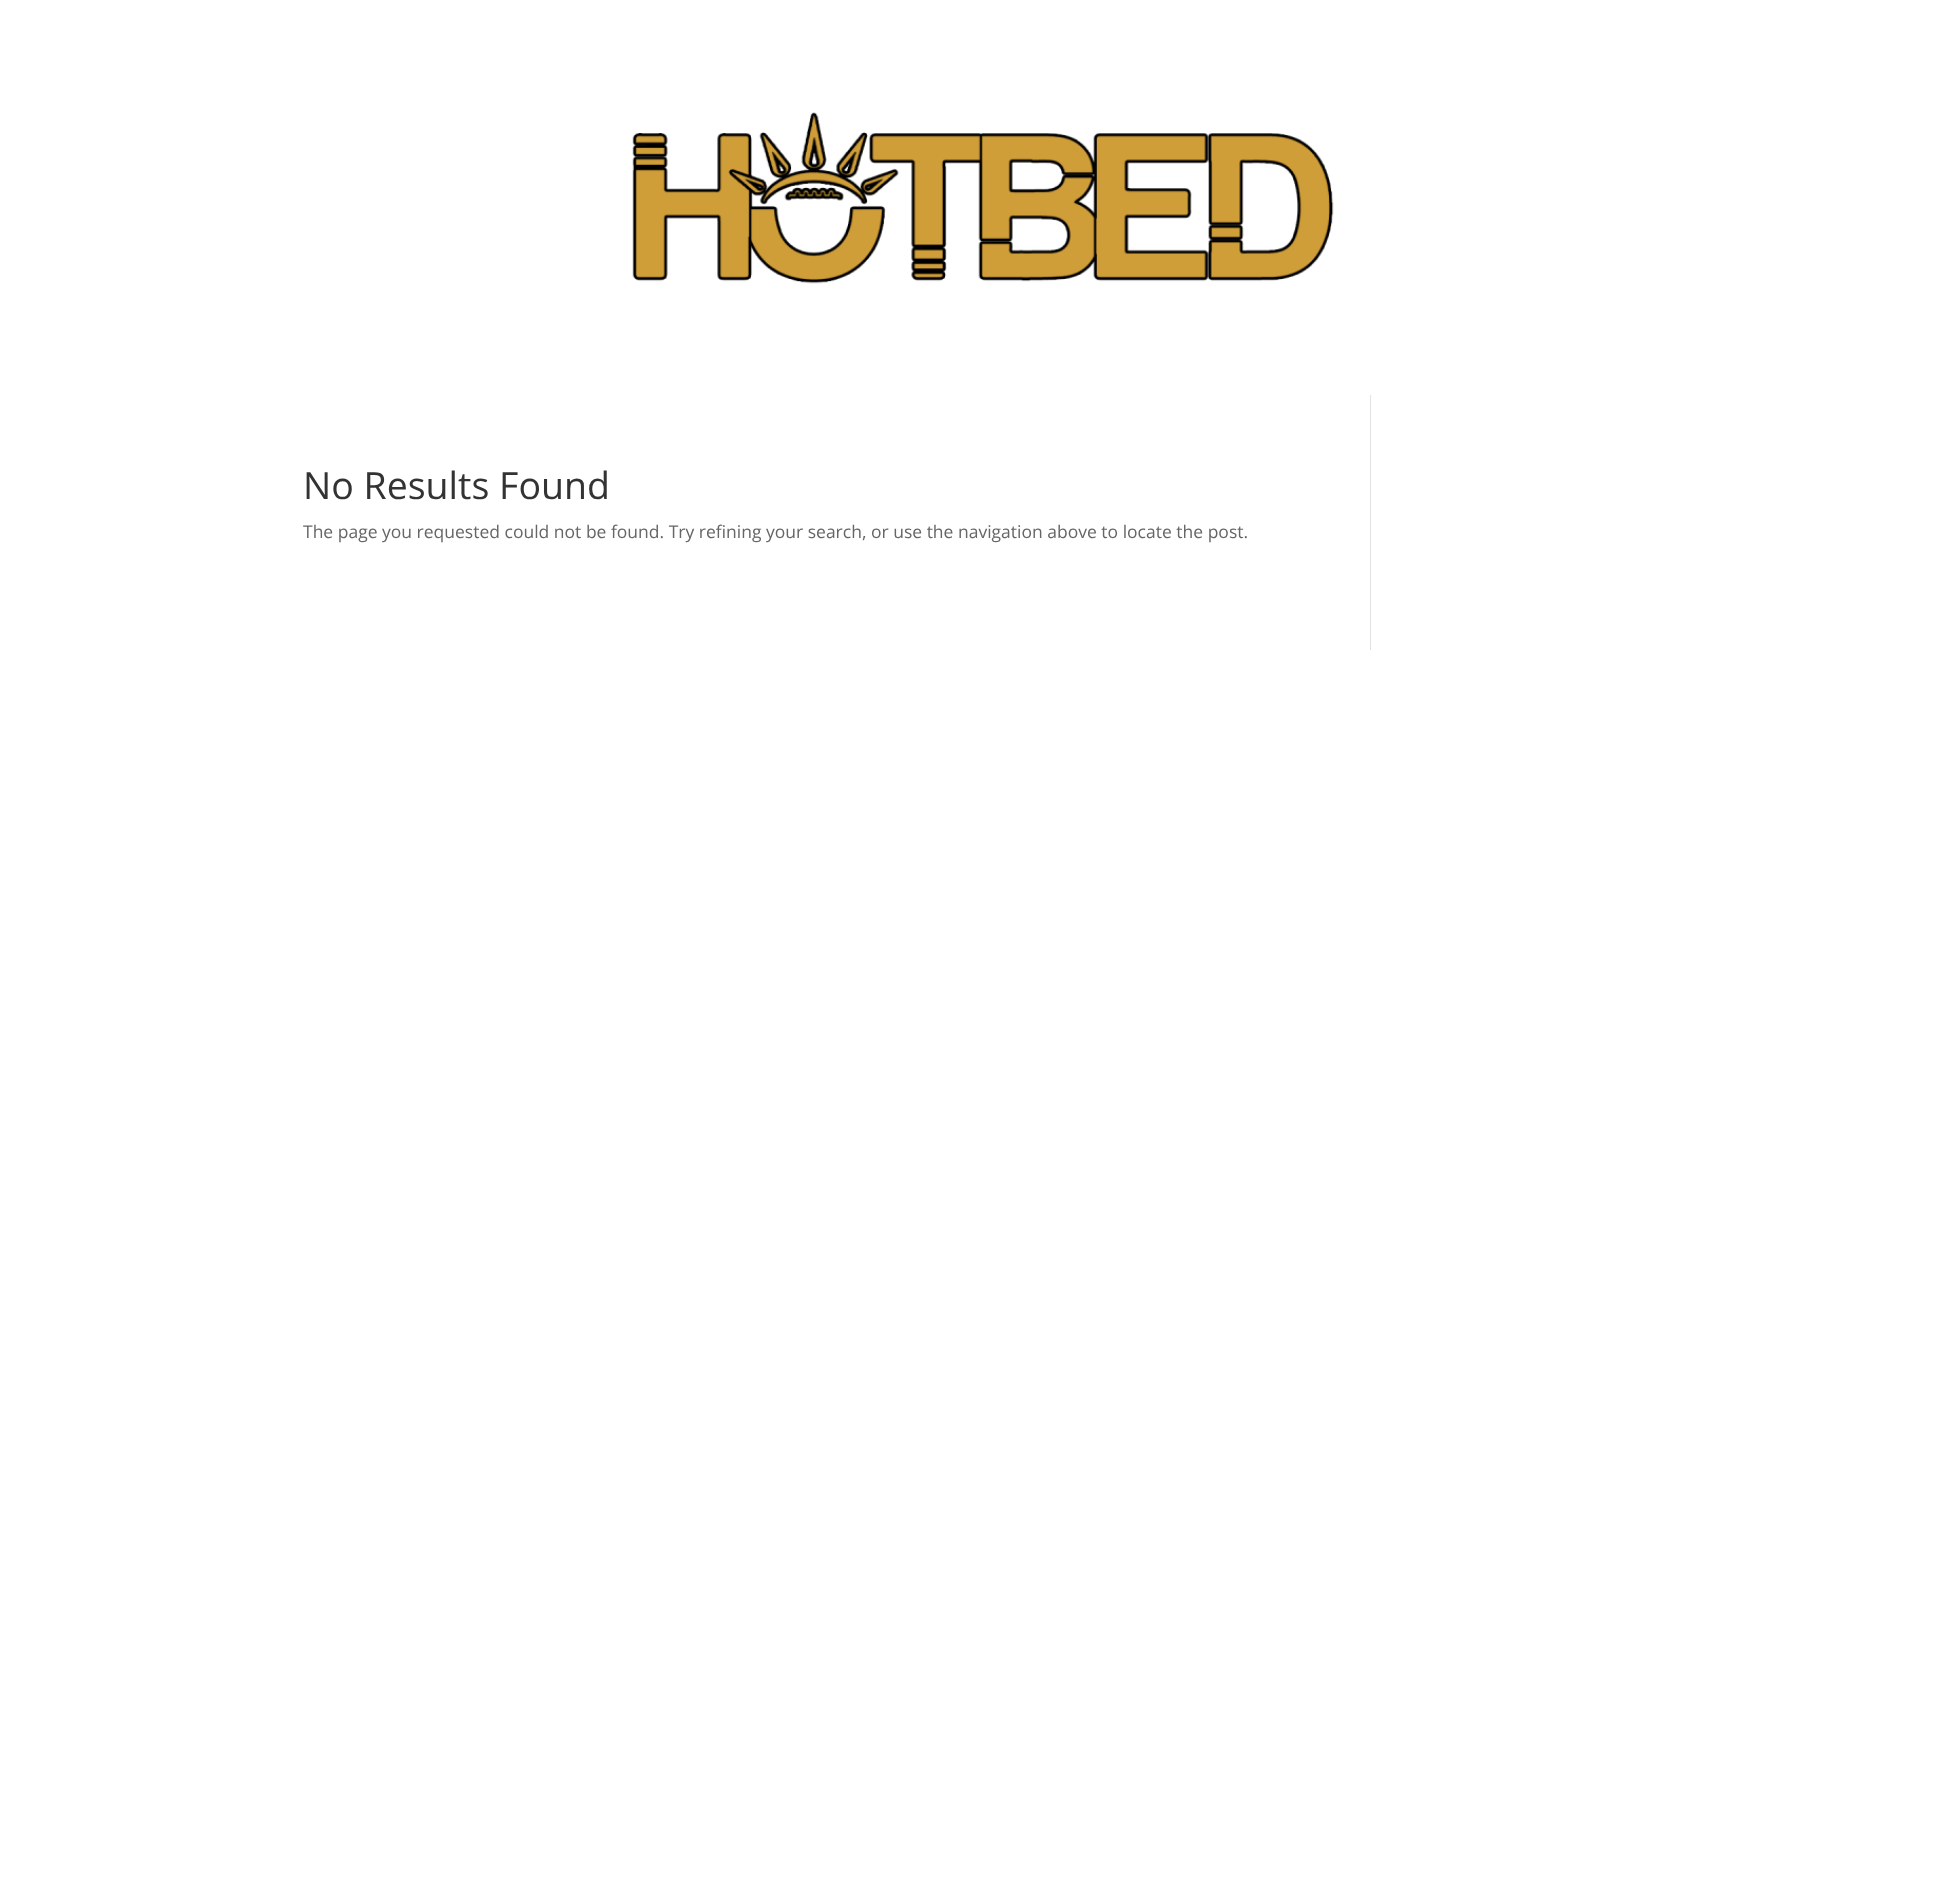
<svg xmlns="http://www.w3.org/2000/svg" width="1956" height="1883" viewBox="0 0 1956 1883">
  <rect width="100%" height="100%" fill="#ffffff"/>
  <image x="632" y="112" width="702" height="172" href="img1.png"/>
  <text x="303" y="499" font-family="Open Sans" font-size="37.5" fill="#333333">No Results Found</text>
  <text x="303" y="538" font-family="Open Sans" font-size="17.5" fill="#666666">The page you requested could not be found. Try refining your search, or use the navigation above to locate the post.</text>
  <rect x="1370" y="395" width="1" height="255" fill="#e2e2e2"/>
</svg>
